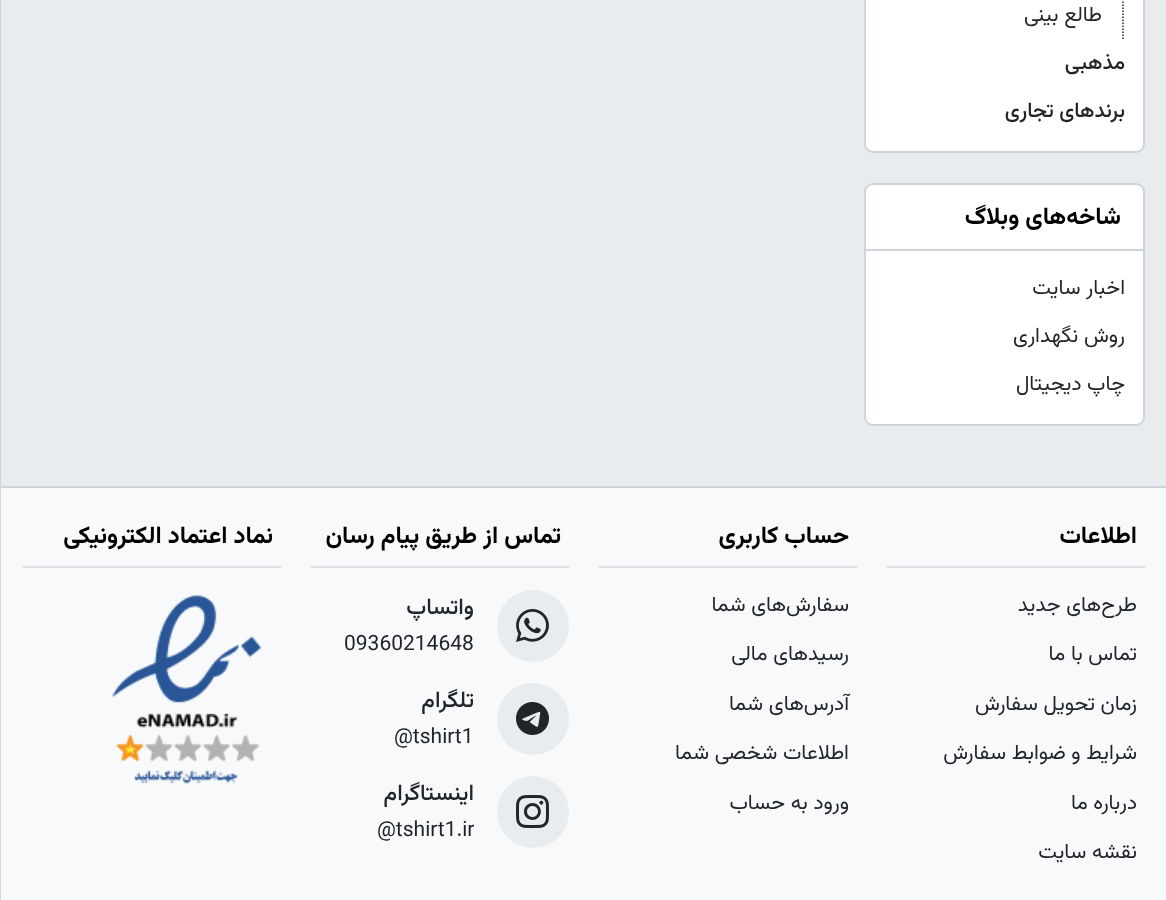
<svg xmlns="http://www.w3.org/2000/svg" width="1166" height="900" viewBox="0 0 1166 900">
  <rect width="100%" height="100%" fill="#f8f9fa"/>
  <rect x="1" y="0" width="1165" height="486" fill="#e9ecef"/>
  <rect x="865" y="-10" width="279" height="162" rx="8" fill="#ffffff" stroke="#ced4da" stroke-width="2"/>
  <path d="M1123-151.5V40.5" fill="none" stroke="#212529" stroke-width="1.5" stroke-dasharray="1.5 1.5"/>
  <text x="1102" y="21" font-family="Vazirmatn" font-size="21" direction="rtl" fill="#212529">طالع بینی</text>
  <text x="1125" y="69" font-family="Vazirmatn" font-size="21" font-weight="500" direction="rtl" fill="#212529">مذهبی</text>
  <text x="1125" y="117" font-family="Vazirmatn" font-size="21" font-weight="500" direction="rtl" fill="#212529">برندهای تجاری</text>
  <rect x="865" y="184" width="279" height="241" rx="8" fill="#ffffff" stroke="#ced4da" stroke-width="2"/>
  <rect x="866" y="249" width="277" height="2" fill="#ced4da"/>
  <text x="1121" y="224" font-family="Vazirmatn" font-size="24" font-weight="bold" direction="rtl" fill="#000000">شاخه‌های وبلاگ</text>
  <text x="1125" y="294" font-family="Vazirmatn" font-size="21" direction="rtl" fill="#212529">اخبار سایت</text>
  <text x="1125" y="342" font-family="Vazirmatn" font-size="21" direction="rtl" fill="#212529">روش نگهداری</text>
  <text x="1125" y="390" font-family="Vazirmatn" font-size="21" direction="rtl" fill="#212529">چاپ دیجیتال</text>
  <rect x="0" y="486" width="1166" height="2" fill="#ced4da"/>
  <rect x="887" y="566" width="258" height="2" fill="#dee2e6"/>
  <text x="1137" y="543" font-family="Vazirmatn" font-size="24" font-weight="bold" direction="rtl" fill="#000000">اطلاعات</text>
  <text x="1137" y="611" font-family="Vazirmatn" font-size="21" direction="rtl" fill="#212529">طرح‌های جدید</text>
  <text x="1137" y="660" font-family="Vazirmatn" font-size="21" direction="rtl" fill="#212529">تماس با ما</text>
  <text x="1137" y="710" font-family="Vazirmatn" font-size="21" direction="rtl" fill="#212529">زمان تحويل سفارش</text>
  <text x="1137" y="759" font-family="Vazirmatn" font-size="21" direction="rtl" fill="#212529">شرايط و ضوابط سفارش</text>
  <text x="1137" y="809" font-family="Vazirmatn" font-size="21" direction="rtl" fill="#212529">درباره ما</text>
  <text x="1137" y="858" font-family="Vazirmatn" font-size="21" direction="rtl" fill="#212529">نقشه سایت</text>
  <rect x="599" y="566" width="258" height="2" fill="#dee2e6"/>
  <text x="849" y="543" font-family="Vazirmatn" font-size="24" font-weight="bold" direction="rtl" fill="#000000">حساب کاربری</text>
  <text x="849" y="611" font-family="Vazirmatn" font-size="21" direction="rtl" fill="#212529">سفارش‌های شما</text>
  <text x="849" y="660" font-family="Vazirmatn" font-size="21" direction="rtl" fill="#212529">رسیدهای مالی</text>
  <text x="849" y="710" font-family="Vazirmatn" font-size="21" direction="rtl" fill="#212529">آدرس‌های شما</text>
  <text x="849" y="759" font-family="Vazirmatn" font-size="21" direction="rtl" fill="#212529">اطلاعات شخصی شما</text>
  <text x="849" y="809" font-family="Vazirmatn" font-size="21" direction="rtl" fill="#212529">ورود به حساب</text>
  <rect x="311" y="566" width="258" height="2" fill="#dee2e6"/>
  <text x="561" y="543" font-family="Vazirmatn" font-size="24" font-weight="bold" direction="rtl" fill="#000000">تماس از طریق پیام رسان</text>
  <circle cx="533" cy="626" r="36" fill="#e9ecef"/>
  <image x="516" y="609" width="33" height="33" href="img1.png"/>
  <text x="474" y="614" font-family="Vazirmatn" font-size="22.5" font-weight="500" direction="rtl" fill="#212529">واتساپ</text>
  <text x="344" y="650" font-family="Vazirmatn" font-size="21" fill="#212529">09360214648</text>
  <circle cx="533" cy="719" r="36" fill="#e9ecef"/>
  <image x="516" y="702" width="33" height="33" href="img2.png"/>
  <text x="474" y="707" font-family="Vazirmatn" font-size="22.5" font-weight="500" direction="rtl" fill="#212529">تلگرام</text>
  <text x="394" y="743" font-family="Vazirmatn" font-size="21" fill="#212529">@tshirt1</text>
  <circle cx="533" cy="812" r="36" fill="#e9ecef"/>
  <image x="516" y="795" width="33" height="33" href="img3.png"/>
  <text x="474" y="800" font-family="Vazirmatn" font-size="22.5" font-weight="500" direction="rtl" fill="#212529">اینستاگرام</text>
  <text x="377" y="836" font-family="Vazirmatn" font-size="21" fill="#212529">@tshirt1.ir</text>
  <rect x="23" y="566" width="258" height="2" fill="#dee2e6"/>
  <text x="273" y="543" font-family="Vazirmatn" font-size="24" font-weight="bold" direction="rtl" fill="#000000">نماد اعتماد الکترونیکی</text>
  <image x="112" y="595" width="150" height="189" href="img4.png"/>
  <rect x="0" y="0" width="1" height="900" fill="#ced4da"/>
</svg>
